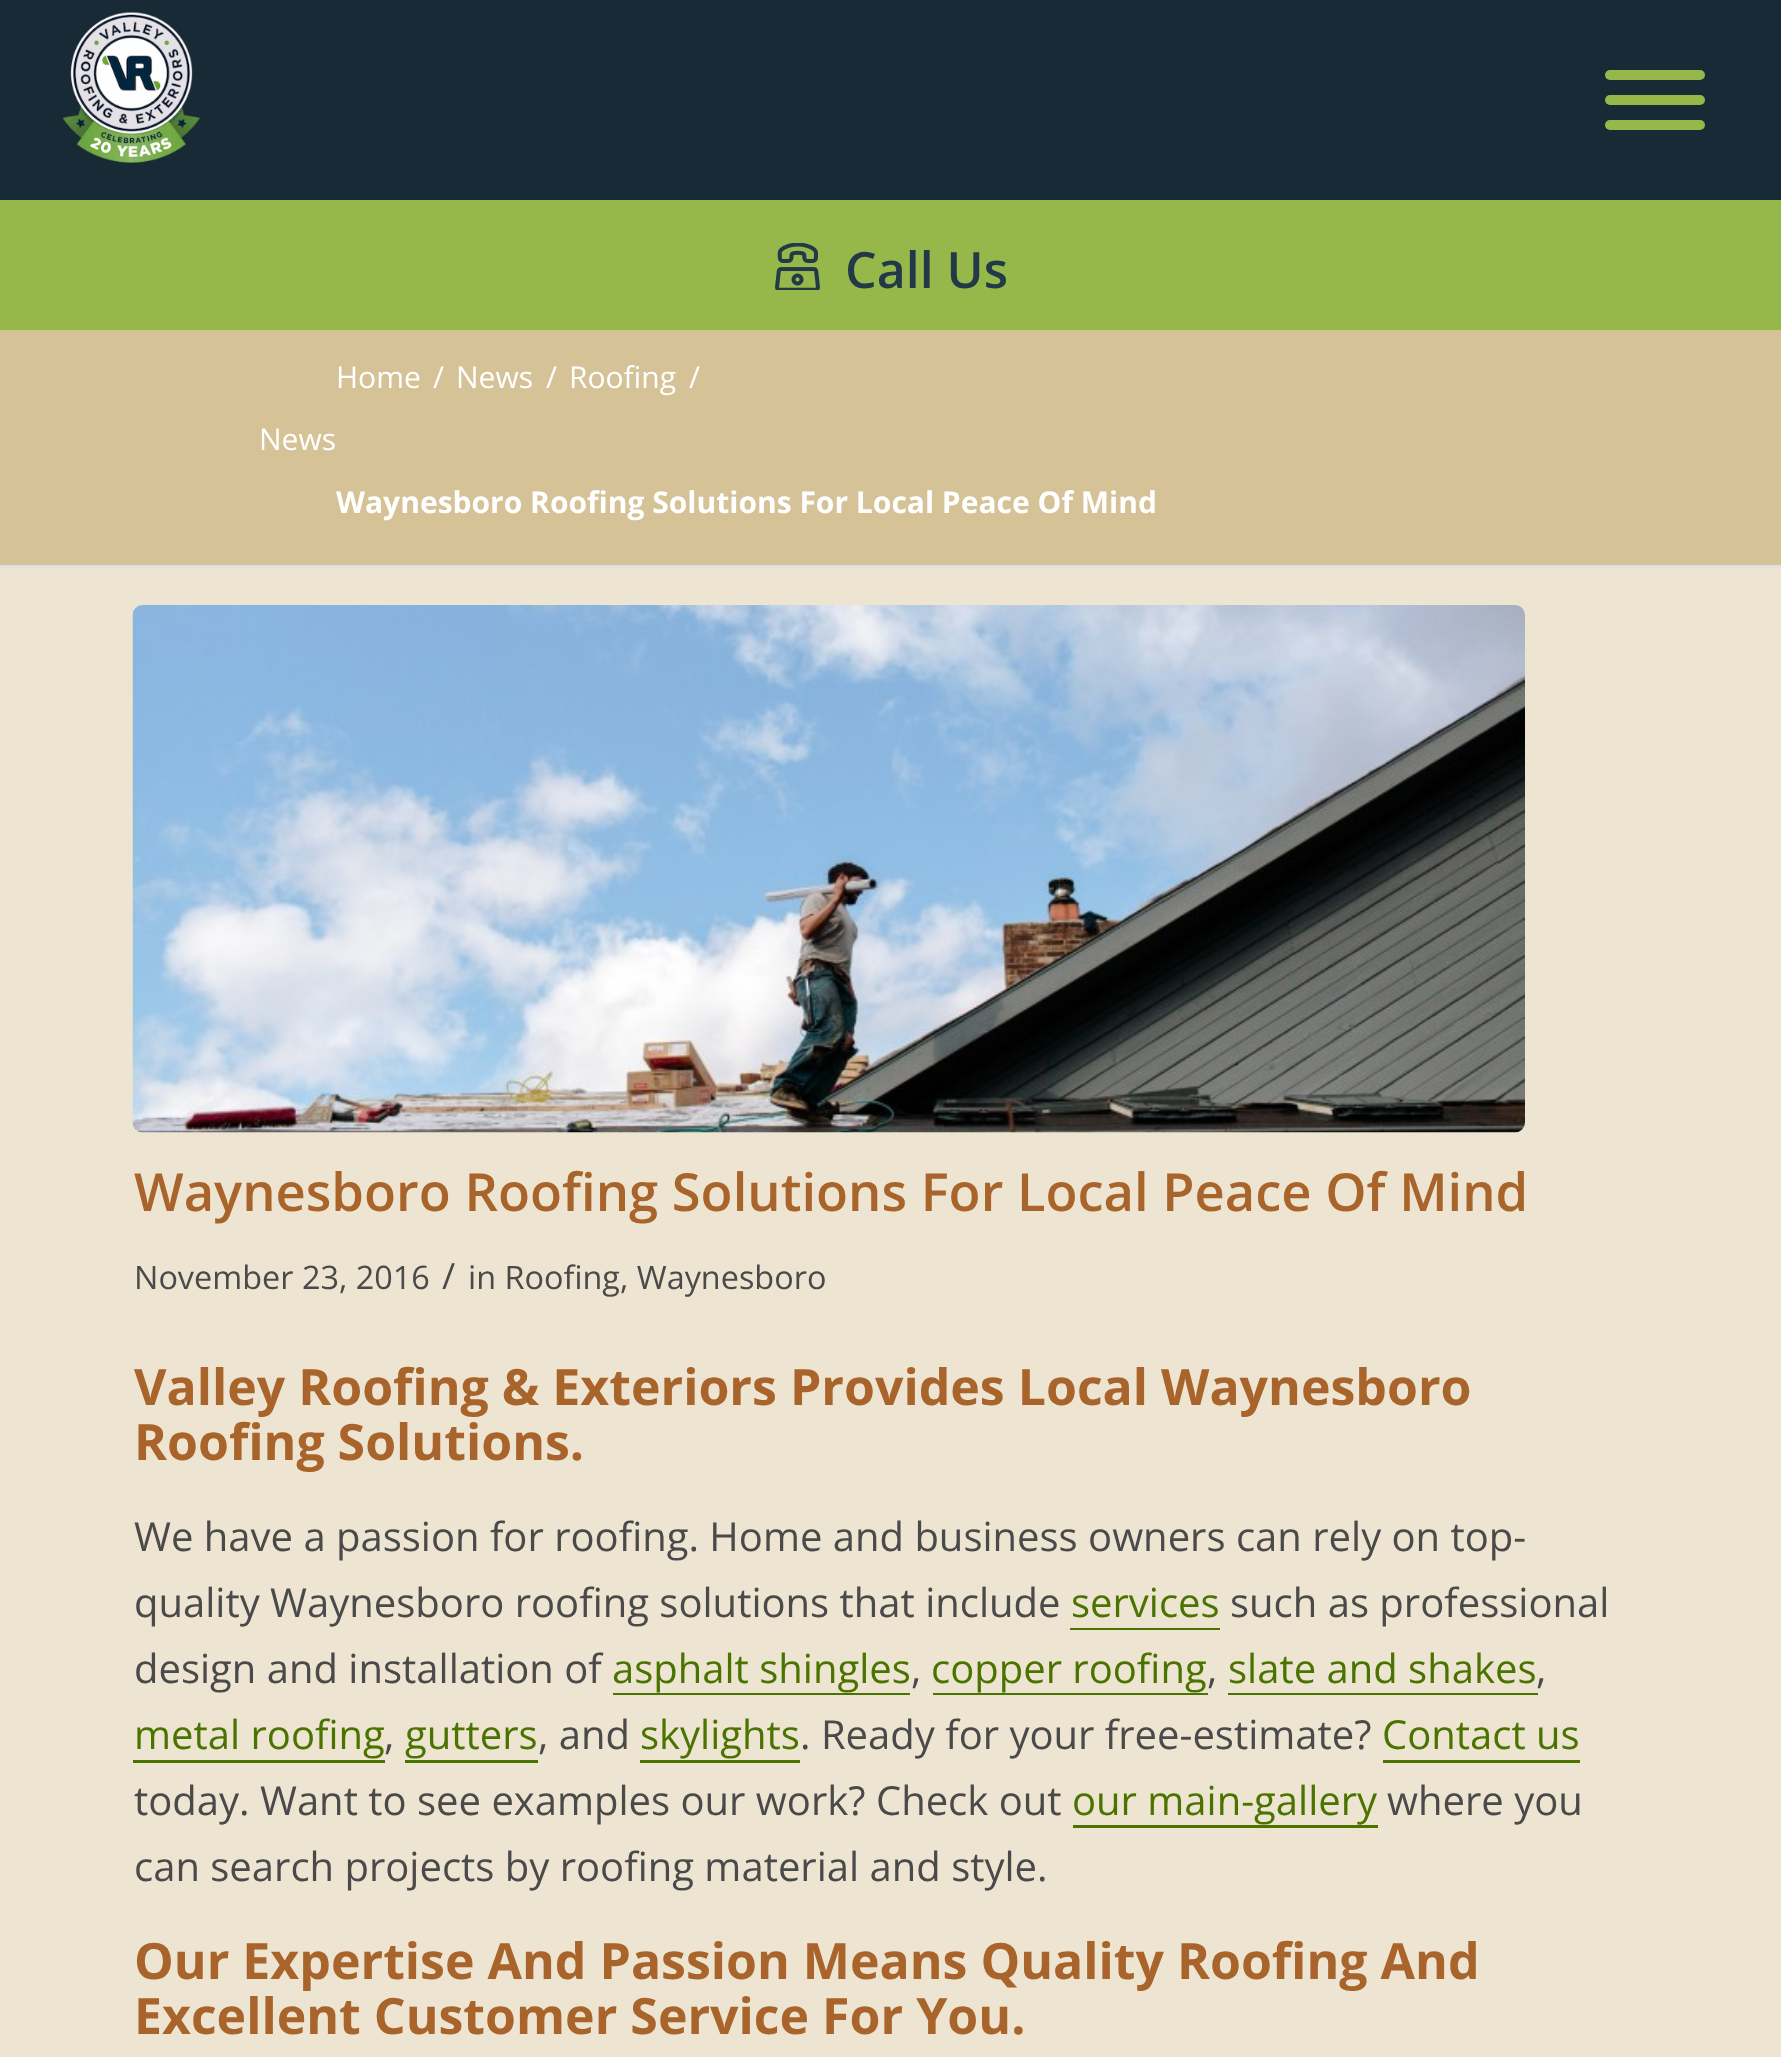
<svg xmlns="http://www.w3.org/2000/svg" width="1781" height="2057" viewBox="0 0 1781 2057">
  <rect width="100%" height="100%" fill="#d5c296"/>
  <rect x="0" y="0" width="1781" height="200" fill="#182a35"/>
  <image x="63" y="12" width="137" height="151" href="img1.png"/>
  <rect x="1605" y="70" width="100" height="10" rx="5" fill="#96b84b"/>
  <rect x="1605" y="95" width="100" height="10" rx="5" fill="#96b84b"/>
  <rect x="1605" y="120" width="100" height="10" rx="5" fill="#96b84b"/>
  <rect x="0" y="200" width="1781" height="130" fill="#96b84b"/>
  <image x="775" y="243" width="45" height="47" href="img2.png"/>
  <text x="845" y="288" font-family="Open Sans" font-size="50" font-weight="600" fill="#223947">Call Us</text>
  <text x="259" y="450" font-family="Open Sans" font-size="30" fill="#ffffff">News</text>
  <text x="336" y="388" font-family="Open Sans" font-size="30" fill="#ffffff">Home</text>
  <text x="433" y="388" font-family="Open Sans" font-size="30" fill="#ffffff">/</text>
  <text x="456" y="388" font-family="Open Sans" font-size="30" fill="#ffffff">News</text>
  <text x="546" y="388" font-family="Open Sans" font-size="30" fill="#ffffff">/</text>
  <text x="569" y="388" font-family="Open Sans" font-size="30" fill="#ffffff">Roofing</text>
  <text x="689" y="388" font-family="Open Sans" font-size="30" fill="#ffffff">/</text>
  <text x="336" y="513" font-family="Open Sans" font-size="30" font-weight="bold" fill="#ffffff">Waynesboro Roofing Solutions For Local Peace Of Mind</text>
  <rect x="0" y="568" width="1781" height="1489" fill="#ede5d1"/>
  <rect x="0" y="565" width="1781" height="3" fill="#e1e1e1"/>
  <image x="132" y="605" width="1393" height="528" href="img3.png"/>
  <text x="134" y="1211" font-family="Open Sans" font-size="52.5" font-weight="600" fill="#a8642b">Waynesboro Roofing Solutions For Local Peace Of Mind</text>
  <text x="134" y="1289" font-family="Open Sans" font-size="32.4" fill="#4a4a4a">November 23, 2016</text>
  <text x="442" y="1289" font-family="Open Sans" font-size="36" fill="#4a4a4a">/</text>
  <text x="468" y="1289" font-family="Open Sans" font-size="32.4" fill="#4a4a4a">in Roofing, Waynesboro</text>
  <text x="134" y="1405" font-family="Open Sans" font-size="50" font-weight="bold" fill="#a8642b">Valley Roofing &amp; Exteriors Provides Local Waynesboro</text>
  <text x="134" y="1460" font-family="Open Sans" font-size="50" font-weight="bold" fill="#a8642b">Roofing Solutions.</text>
  <text x="134" y="1551" font-family="Open Sans" font-size="40" fill="#4a4a4a">We have a passion for roofing. Home and business owners can rely on top-</text>
  <text x="134" y="1617" font-family="Open Sans" font-size="40" fill="#4a4a4a">quality Waynesboro roofing solutions that include</text>
  <text x="1071" y="1617" font-family="Open Sans" font-size="40" fill="#4b7300">services</text>
  <rect x="1070" y="1628" width="150" height="2" fill="#4b7300"/>
  <text x="1230" y="1617" font-family="Open Sans" font-size="40" fill="#4a4a4a">such as professional</text>
  <text x="134" y="1683" font-family="Open Sans" font-size="40" fill="#4a4a4a">design and installation of</text>
  <text x="612" y="1683" font-family="Open Sans" font-size="40" fill="#4b7300">asphalt shingles</text>
  <rect x="613" y="1693" width="297" height="2" fill="#4b7300"/>
  <text x="911" y="1683" font-family="Open Sans" font-size="40" fill="#4a4a4a">,</text>
  <text x="931" y="1683" font-family="Open Sans" font-size="40" fill="#4b7300">copper roofing</text>
  <rect x="933" y="1693" width="275" height="2" fill="#4b7300"/>
  <text x="1207" y="1683" font-family="Open Sans" font-size="40" fill="#4a4a4a">,</text>
  <text x="1228" y="1683" font-family="Open Sans" font-size="40" fill="#4b7300">slate and shakes</text>
  <rect x="1228" y="1693" width="310" height="2" fill="#4b7300"/>
  <text x="1536" y="1683" font-family="Open Sans" font-size="40" fill="#4a4a4a">,</text>
  <text x="134" y="1749" font-family="Open Sans" font-size="40" fill="#4b7300">metal roofing</text>
  <rect x="133" y="1760" width="252" height="3" fill="#4b7300"/>
  <text x="384" y="1749" font-family="Open Sans" font-size="40" fill="#4a4a4a">,</text>
  <text x="405" y="1749" font-family="Open Sans" font-size="40" fill="#4b7300">gutters</text>
  <rect x="405" y="1760" width="133" height="3" fill="#4b7300"/>
  <text x="538" y="1749" font-family="Open Sans" font-size="40" fill="#4a4a4a">, and</text>
  <text x="640" y="1749" font-family="Open Sans" font-size="40" fill="#4b7300">skylights</text>
  <rect x="640" y="1760" width="160" height="3" fill="#4b7300"/>
  <text x="800" y="1749" font-family="Open Sans" font-size="40" fill="#4a4a4a">. Ready for your free-estimate?</text>
  <text x="1382" y="1749" font-family="Open Sans" font-size="40" fill="#4b7300">Contact us</text>
  <rect x="1383" y="1760" width="197" height="3" fill="#4b7300"/>
  <text x="134" y="1815" font-family="Open Sans" font-size="40" fill="#4a4a4a">today. Want to see examples our work? Check out</text>
  <text x="1072" y="1815" font-family="Open Sans" font-size="40" fill="#4b7300">our main-gallery</text>
  <rect x="1073" y="1825" width="305" height="3" fill="#4b7300"/>
  <text x="1387" y="1815" font-family="Open Sans" font-size="40" fill="#4a4a4a">where you</text>
  <text x="134" y="1881" font-family="Open Sans" font-size="40" fill="#4a4a4a">can search projects by roofing material and style.</text>
  <text x="134" y="1979" font-family="Open Sans" font-size="50" font-weight="bold" fill="#a8642b">Our Expertise And Passion Means Quality Roofing And</text>
  <text x="134" y="2034" font-family="Open Sans" font-size="50" font-weight="bold" fill="#a8642b">Excellent Customer Service For You.</text>
</svg>
